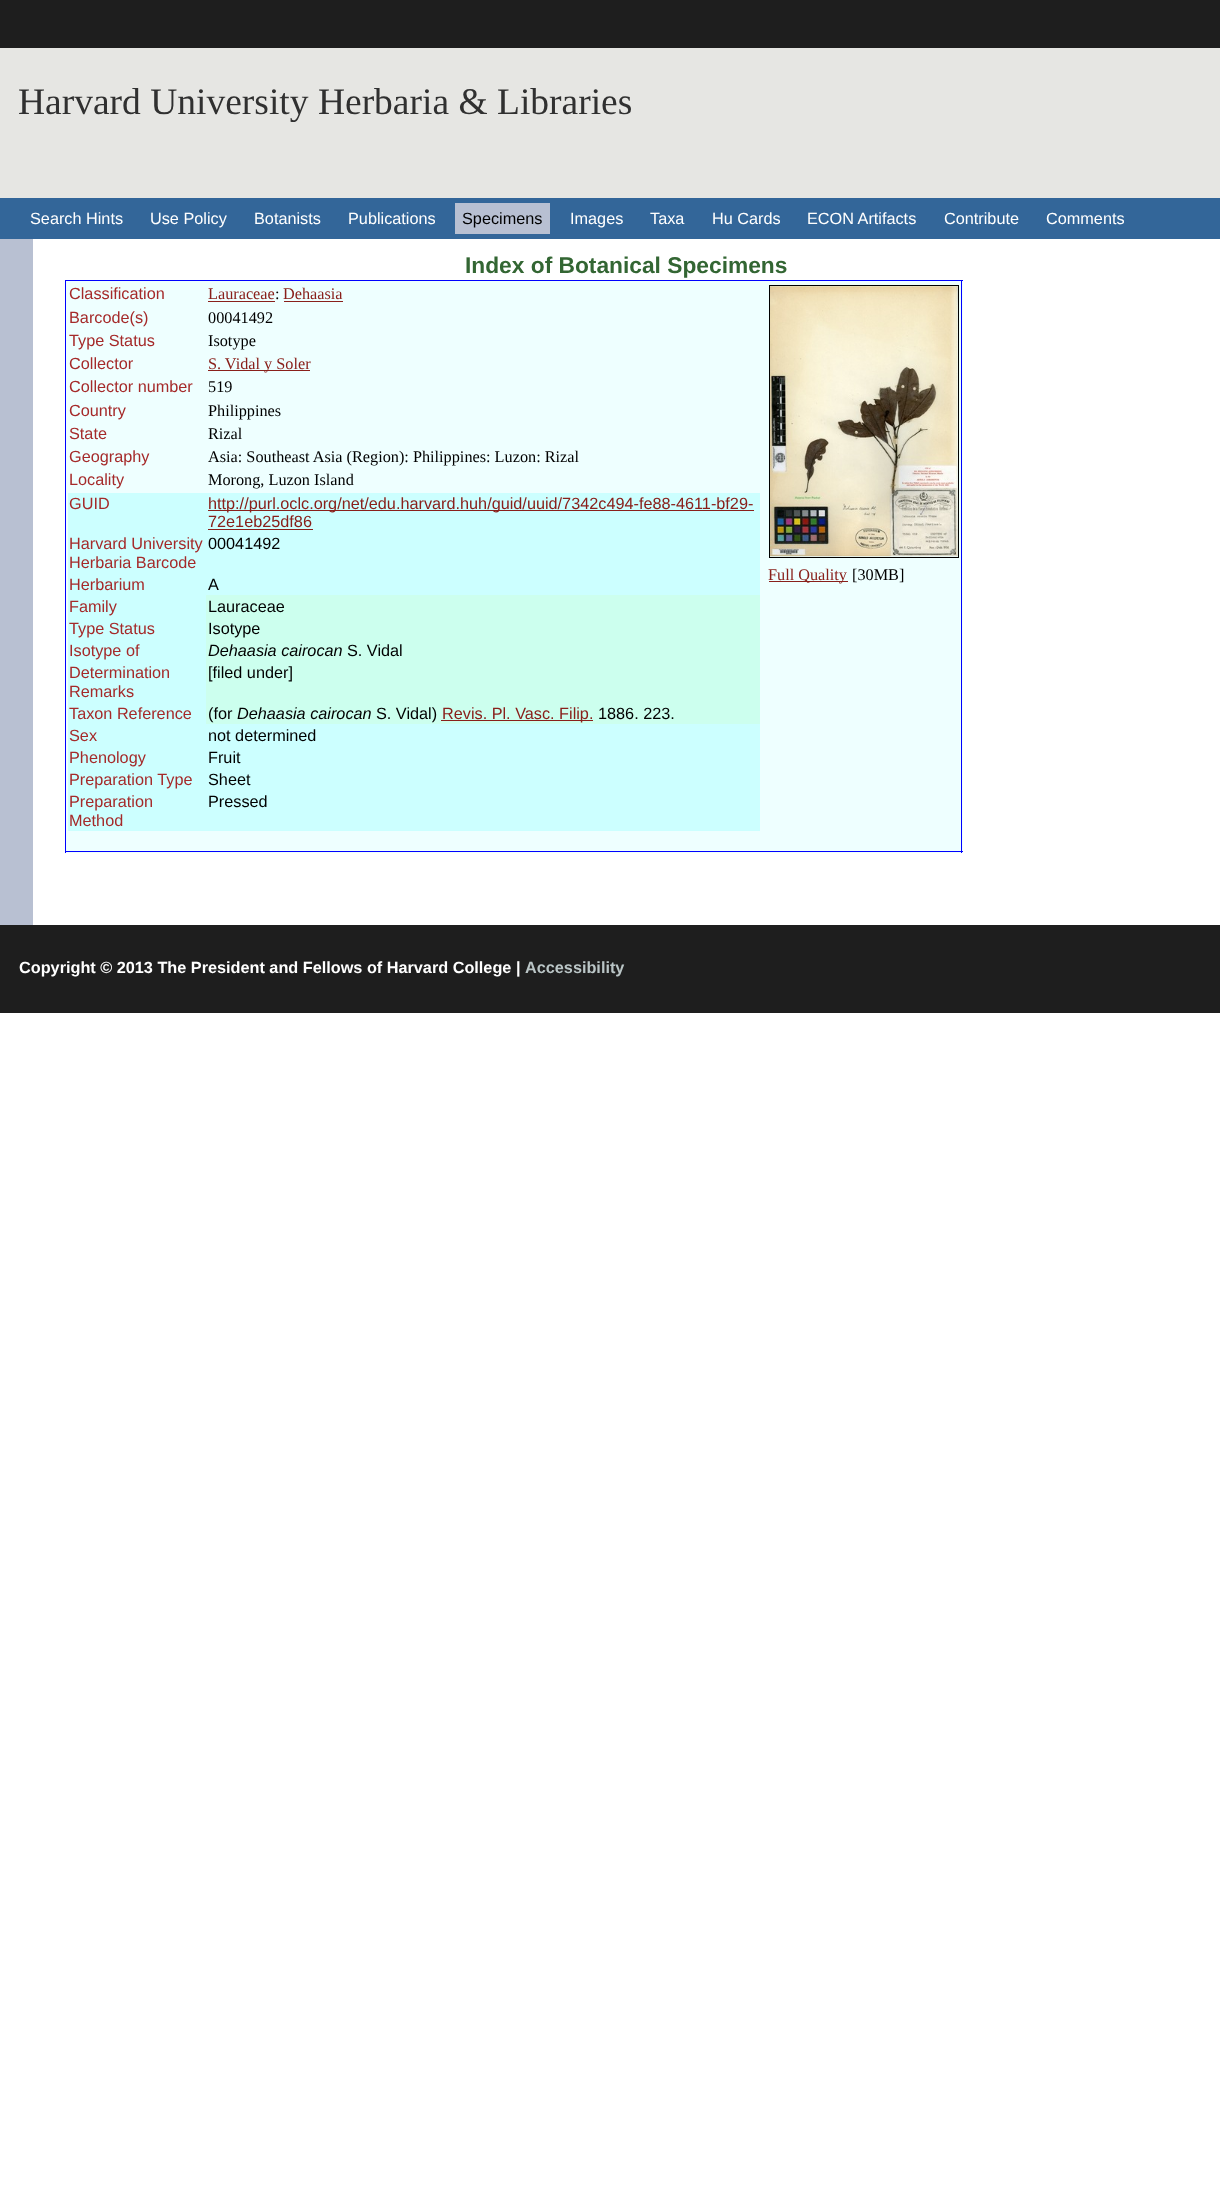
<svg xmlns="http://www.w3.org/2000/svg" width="1220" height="2195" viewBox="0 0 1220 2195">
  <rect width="100%" height="100%" fill="#ffffff"/>
  <rect x="0" y="0" width="1220" height="48" fill="#1e1e1e"/>
  <rect x="0" y="48" width="1220" height="150" fill="#e6e6e3"/>
  <text x="18" y="114" font-family="Liberation Serif" font-size="37.5" fill="#303030">Harvard University Herbaria &amp; Libraries</text>
  <rect x="0" y="198" width="1220" height="41" fill="#336699"/>
  <text x="30" y="224" font-family="Liberation Sans" font-size="16.25" fill="#ffffff">Search Hints</text>
  <text x="150" y="224" font-family="Liberation Sans" font-size="16.25" fill="#ffffff">Use Policy</text>
  <text x="254" y="224" font-family="Liberation Sans" font-size="16.25" fill="#ffffff">Botanists</text>
  <text x="348" y="224" font-family="Liberation Sans" font-size="16.25" fill="#ffffff">Publications</text>
  <rect x="455" y="203" width="95" height="31" fill="#b8c0d2"/>
  <text x="462" y="224" font-family="Liberation Sans" font-size="16.25" fill="#000000">Specimens</text>
  <text x="570" y="224" font-family="Liberation Sans" font-size="16.25" fill="#ffffff">Images</text>
  <text x="650" y="224" font-family="Liberation Sans" font-size="16.25" fill="#ffffff">Taxa</text>
  <text x="712" y="224" font-family="Liberation Sans" font-size="16.25" fill="#ffffff">Hu Cards</text>
  <text x="807" y="224" font-family="Liberation Sans" font-size="16.25" fill="#ffffff">ECON Artifacts</text>
  <text x="944" y="224" font-family="Liberation Sans" font-size="16.25" fill="#ffffff">Contribute</text>
  <text x="1046" y="224" font-family="Liberation Sans" font-size="16.25" fill="#ffffff">Comments</text>
  <rect x="0" y="239" width="33" height="686" fill="#b8c0d2"/>
  <text x="465" y="273" font-family="Liberation Sans" font-size="22.75" font-weight="bold" fill="#336633">Index of Botanical Specimens</text>
  <rect x="66" y="281" width="897" height="572" fill="#eeffff"/>
  <rect x="65" y="280" width="898" height="1" fill="#0000ff"/>
  <rect x="961" y="280" width="1" height="573" fill="#0000ff"/>
  <rect x="65" y="851" width="898" height="1" fill="#0000ff"/>
  <rect x="65" y="280" width="1" height="573" fill="#0000ff"/>
  <text x="69" y="299" font-family="Liberation Sans" font-size="16.25" fill="#a52a2a">Classification</text>
  <text x="208" y="299" font-family="Liberation Serif" font-size="16.25" fill="#89201b">Lauraceae</text>
  <rect x="208" y="301" width="67" height="1" fill="#89201b"/>
  <text x="275" y="299" font-family="Liberation Serif" font-size="16.25" fill="#000000">:</text>
  <text x="283" y="299" font-family="Liberation Serif" font-size="16.25" fill="#89201b">Dehaasia</text>
  <rect x="284" y="301" width="59" height="1" fill="#89201b"/>
  <text x="69" y="323" font-family="Liberation Sans" font-size="16.25" fill="#a52a2a">Barcode(s)</text>
  <text x="208" y="323" font-family="Liberation Serif" font-size="16.25" fill="#000000">00041492</text>
  <text x="69" y="346" font-family="Liberation Sans" font-size="16.25" fill="#a52a2a">Type Status</text>
  <text x="208" y="346" font-family="Liberation Serif" font-size="16.25" fill="#000000">Isotype</text>
  <text x="69" y="369" font-family="Liberation Sans" font-size="16.25" fill="#a52a2a">Collector</text>
  <rect x="208" y="370" width="102" height="1" fill="#89201b"/>
  <text x="208" y="369" font-family="Liberation Serif" font-size="16.25" fill="#89201b">S. Vidal y Soler</text>
  <text x="69" y="392" font-family="Liberation Sans" font-size="16.25" fill="#a52a2a">Collector number</text>
  <text x="208" y="392" font-family="Liberation Serif" font-size="16.25" fill="#000000">519</text>
  <text x="69" y="416" font-family="Liberation Sans" font-size="16.25" fill="#a52a2a">Country</text>
  <text x="208" y="416" font-family="Liberation Serif" font-size="16.25" fill="#000000">Philippines</text>
  <text x="69" y="439" font-family="Liberation Sans" font-size="16.25" fill="#a52a2a">State</text>
  <text x="208" y="439" font-family="Liberation Serif" font-size="16.25" fill="#000000">Rizal</text>
  <text x="69" y="462" font-family="Liberation Sans" font-size="16.25" fill="#a52a2a">Geography</text>
  <text x="208" y="462" font-family="Liberation Serif" font-size="16.25" fill="#000000">Asia: Southeast Asia (Region): Philippines: Luzon: Rizal</text>
  <text x="69" y="485" font-family="Liberation Sans" font-size="16.25" fill="#a52a2a">Locality</text>
  <text x="208" y="485" font-family="Liberation Serif" font-size="16.25" fill="#000000">Morong, Luzon Island</text>
  <rect x="68" y="493" width="692" height="102" fill="#ccffff"/>
  <text x="69" y="509" font-family="Liberation Sans" font-size="16.25" fill="#a52a2a">GUID</text>
  <rect x="208" y="510" width="546" height="1" fill="#89201b"/>
  <text x="208" y="509" font-family="Liberation Sans" font-size="16.25" fill="#89201b">http://purl.oclc.org/net/edu.harvard.huh/guid/uuid/7342c494-fe88-4611-bf29-</text>
  <text x="208" y="527" font-family="Liberation Sans" font-size="16.25" fill="#89201b">72e1eb25df86</text>
  <rect x="208" y="529" width="105" height="1" fill="#89201b"/>
  <text x="69" y="549" font-family="Liberation Sans" font-size="16.25" fill="#a52a2a">Harvard University</text>
  <text x="69" y="568" font-family="Liberation Sans" font-size="16.25" fill="#a52a2a">Herbaria Barcode</text>
  <text x="208" y="549" font-family="Liberation Sans" font-size="16.25" fill="#000000">00041492</text>
  <text x="69" y="590" font-family="Liberation Sans" font-size="16.25" fill="#a52a2a">Herbarium</text>
  <text x="208" y="590" font-family="Liberation Sans" font-size="16.25" fill="#000000">A</text>
  <rect x="68" y="595" width="138" height="129" fill="#ccffff"/>
  <text x="69" y="612" font-family="Liberation Sans" font-size="16.25" fill="#a52a2a">Family</text>
  <rect x="206" y="595" width="554" height="129" fill="#ccffee"/>
  <text x="208" y="612" font-family="Liberation Sans" font-size="16.25" fill="#000000">Lauraceae</text>
  <text x="69" y="634" font-family="Liberation Sans" font-size="16.25" fill="#a52a2a">Type Status</text>
  <text x="208" y="634" font-family="Liberation Sans" font-size="16.25" fill="#000000">Isotype</text>
  <text x="69" y="656" font-family="Liberation Sans" font-size="16.25" fill="#a52a2a">Isotype of</text>
  <text x="208" y="656" font-family="Liberation Sans" font-size="16.25" font-style="italic" fill="#000000">Dehaasia cairocan</text>
  <text x="347" y="656" font-family="Liberation Sans" font-size="16.25" fill="#000000">S. Vidal</text>
  <text x="69" y="678" font-family="Liberation Sans" font-size="16.25" fill="#a52a2a">Determination</text>
  <text x="69" y="697" font-family="Liberation Sans" font-size="16.25" fill="#a52a2a">Remarks</text>
  <text x="208" y="678" font-family="Liberation Sans" font-size="16.25" fill="#000000">[filed under]</text>
  <text x="69" y="719" font-family="Liberation Sans" font-size="16.25" fill="#a52a2a">Taxon Reference</text>
  <text x="208" y="719" font-family="Liberation Sans" font-size="16.25" fill="#000000">(for</text>
  <text x="237" y="719" font-family="Liberation Sans" font-size="16.25" font-style="italic" fill="#000000">Dehaasia cairocan</text>
  <text x="376" y="719" font-family="Liberation Sans" font-size="16.25" fill="#000000">S. Vidal)</text>
  <rect x="441" y="720" width="152" height="1" fill="#89201b"/>
  <text x="442" y="719" font-family="Liberation Sans" font-size="16.25" fill="#89201b">Revis. Pl. Vasc. Filip.</text>
  <text x="598" y="719" font-family="Liberation Sans" font-size="16.25" fill="#000000">1886. 223.</text>
  <rect x="68" y="724" width="692" height="107" fill="#ccffff"/>
  <text x="69" y="741" font-family="Liberation Sans" font-size="16.25" fill="#a52a2a">Sex</text>
  <text x="208" y="741" font-family="Liberation Sans" font-size="16.25" fill="#000000">not determined</text>
  <text x="69" y="763" font-family="Liberation Sans" font-size="16.25" fill="#a52a2a">Phenology</text>
  <text x="208" y="763" font-family="Liberation Sans" font-size="16.25" fill="#000000">Fruit</text>
  <text x="69" y="785" font-family="Liberation Sans" font-size="16.25" fill="#a52a2a">Preparation Type</text>
  <text x="208" y="785" font-family="Liberation Sans" font-size="16.25" fill="#000000">Sheet</text>
  <text x="69" y="807" font-family="Liberation Sans" font-size="16.25" fill="#a52a2a">Preparation</text>
  <text x="69" y="826" font-family="Liberation Sans" font-size="16.25" fill="#a52a2a">Method</text>
  <text x="208" y="807" font-family="Liberation Sans" font-size="16.25" fill="#000000">Pressed</text>
  <rect x="769.5" y="285.5" width="189" height="272" fill="none" stroke="#000000"/>
  <image x="770" y="286" width="188" height="271" href="img1.png"/>
  <rect x="769" y="581" width="79" height="1" fill="#89201b"/>
  <text x="768" y="580" font-family="Liberation Serif" font-size="16.25" fill="#89201b">Full Quality</text>
  <text x="852" y="580" font-family="Liberation Serif" font-size="16.25" fill="#000000">[30MB]</text>
  <rect x="0" y="925" width="1220" height="88" fill="#1e1e1e"/>
  <text x="19" y="973" font-family="Liberation Sans" font-size="16.25" font-weight="bold" fill="#ffffff">Copyright © 2013 The President and Fellows of Harvard College |</text>
  <text x="525" y="973" font-family="Liberation Sans" font-size="16.25" font-weight="bold" fill="#bac5c6">Accessibility</text>
</svg>
